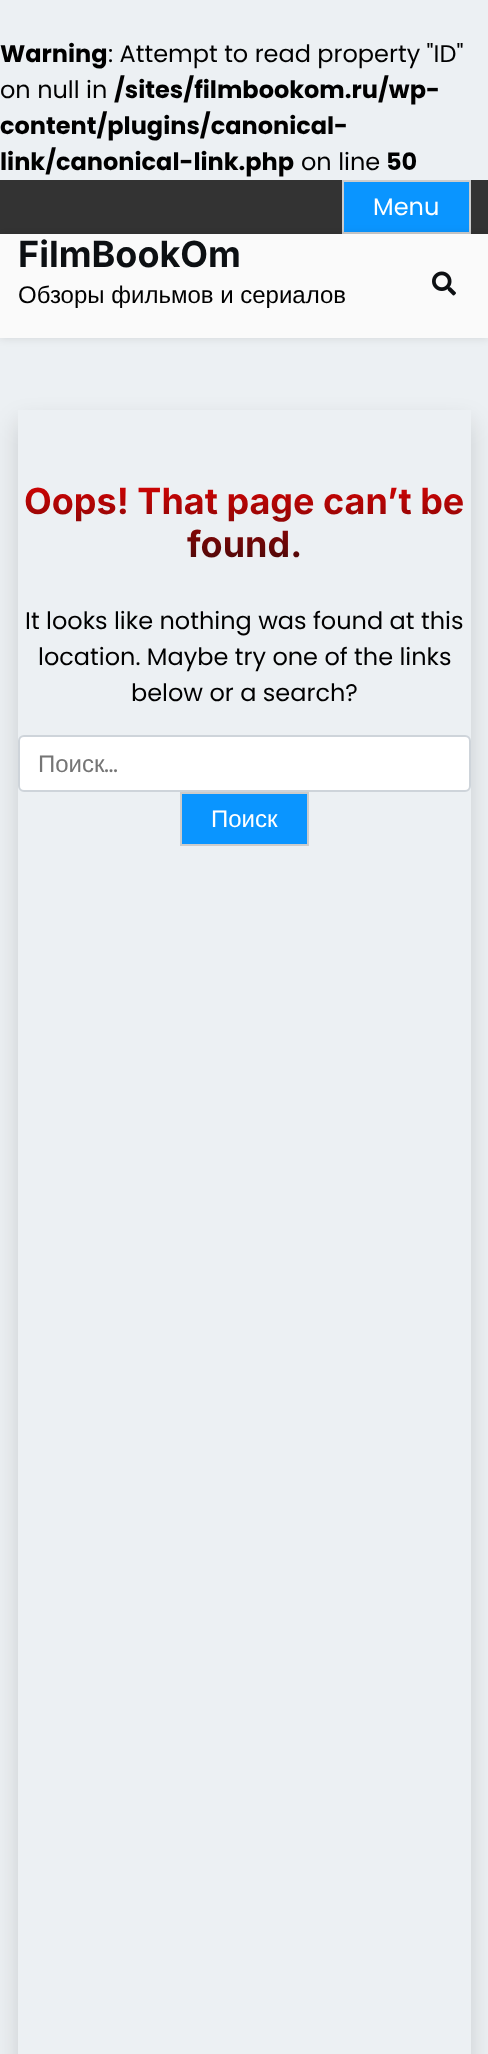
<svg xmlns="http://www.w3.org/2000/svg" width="488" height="2054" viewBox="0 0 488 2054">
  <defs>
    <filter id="blur1" x="-50%" y="-200%" width="200%" height="500%"><feGaussianBlur stdDeviation="4"/></filter>
    <clipPath id="clip1"><path d="M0 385H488V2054H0ZM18 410H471V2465H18Z" clip-rule="evenodd"/></clipPath>
    <filter id="blur2" x="-50%" y="-200%" width="200%" height="500%"><feGaussianBlur stdDeviation="12"/></filter>
    <linearGradient id="g1" gradientUnits="userSpaceOnUse" x1="245" y1="481" x2="245" y2="568"><stop offset="0" stop-color="#d60303"/><stop offset="1" stop-color="#410909"/></linearGradient>
  </defs>
  <rect width="100%" height="100%" fill="#ecf0f3"/>
  <text x="0" y="62" font-family="Poppins" font-size="24" font-weight="bold" fill="#000000">Warning</text>
  <text x="108" y="62" font-family="Poppins" font-size="24" fill="#000000">: Attempt to read property "ID"</text>
  <text x="0" y="98" font-family="Poppins" font-size="24" fill="#000000">on null in</text>
  <text x="114" y="98" font-family="Poppins" font-size="24" font-weight="bold" fill="#000000">/sites/filmbookom.ru/wp-</text>
  <text x="0" y="134" font-family="Poppins" font-size="24" font-weight="bold" fill="#000000">content/plugins/canonical-</text>
  <text x="0" y="170" font-family="Poppins" font-size="24" font-weight="bold" fill="#000000">link/canonical-link.php</text>
  <text x="301" y="170" font-family="Poppins" font-size="24" fill="#000000">on line</text>
  <text x="386" y="170" font-family="Poppins" font-size="24" font-weight="bold" fill="#000000">50</text>
  <rect x="0" y="180" width="488" height="54" fill="#333333"/>
  <rect x="343" y="181" width="127" height="52" fill="#0a95ff" stroke="#cccccc" stroke-width="2"/>
  <text x="373" y="215" font-family="Poppins" font-size="24" fill="#ffffff">Menu</text>
  <rect x="0" y="234" width="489" height="104" fill="#000000" fill-opacity="0.12" filter="url(#blur1)"/>
  <rect x="0" y="234" width="488" height="104" fill="#fafafa"/>
  <text x="18" y="267" font-family="Inter" font-size="36" font-weight="bold" fill="#0d1013">FilmBookOm</text>
  <text x="18" y="303" font-family="Liberation Sans" font-size="24" fill="#000000">Обзоры фильмов и сериалов</text>
  <image x="432" y="271" width="24" height="25" href="img1.png"/>
  <g clip-path="url(#clip1)">
    <rect x="18" y="422" width="453" height="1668" fill="#000000" fill-opacity="0.15" filter="url(#blur2)"/>
  </g>
  <text x="24" y="514" font-family="Inter" font-size="36" font-weight="bold" fill="url(#g1)">Oops! That page can’t be</text>
  <text x="187" y="557" font-family="Inter" font-size="36" font-weight="bold" fill="url(#g1)">found.</text>
  <text x="25" y="629" font-family="Poppins" font-size="24" fill="#000000">It looks like nothing was found at this</text>
  <text x="38" y="665" font-family="Poppins" font-size="24" fill="#000000">location. Maybe try one of the links</text>
  <text x="131" y="701" font-family="Poppins" font-size="24" fill="#000000">below or a search?</text>
  <rect x="19" y="736" width="451" height="55" rx="5" fill="#ffffff" stroke="#ced4da" stroke-width="2"/>
  <text x="38" y="772" font-family="Liberation Sans" font-size="24" fill="#757575">Поиск</text>
  <text x="104" y="772" font-family="Poppins" font-size="24" fill="#757575">…</text>
  <rect x="181" y="793" width="127" height="52" fill="#0a95ff" stroke="#cccccc" stroke-width="2"/>
  <text x="211" y="827" font-family="Liberation Sans" font-size="24" fill="#ffffff">Поиск</text>
</svg>
